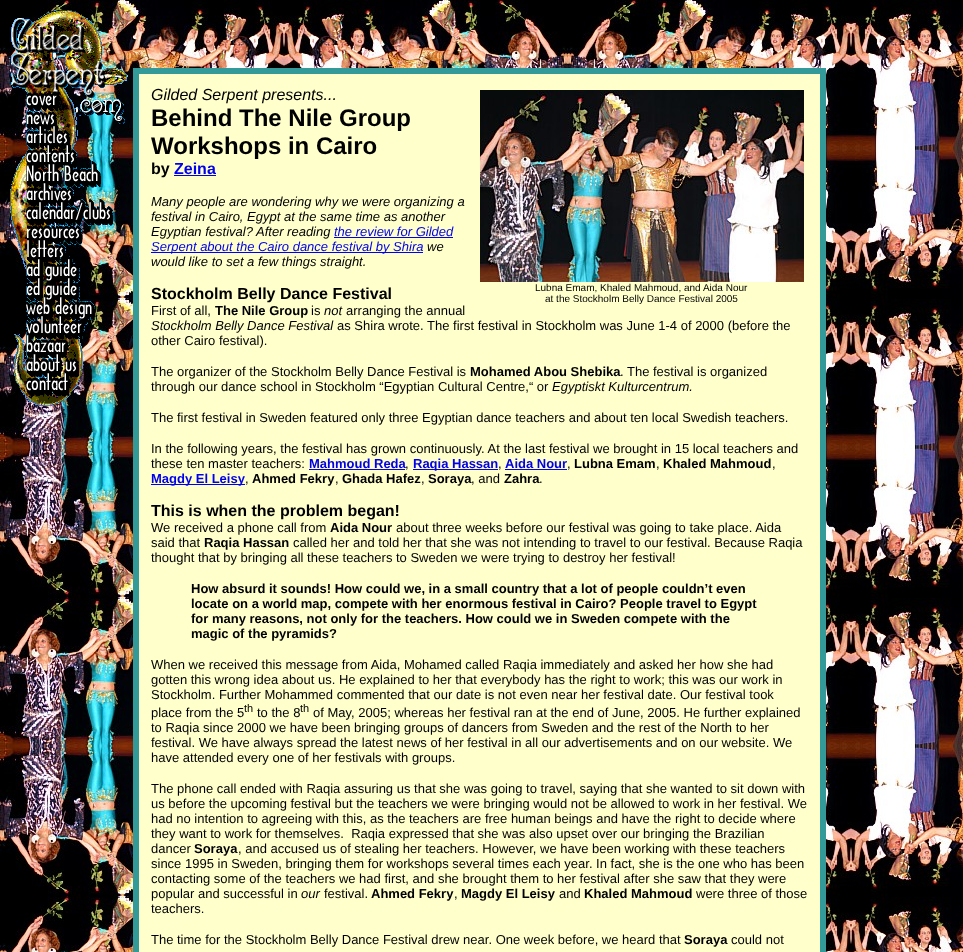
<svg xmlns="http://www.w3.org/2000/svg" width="963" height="952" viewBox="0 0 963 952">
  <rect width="100%" height="100%" fill="#ffffff"/>
  <image x="0" y="0" width="963" height="952" href="img1.png"/>
  <image x="10" y="10" width="118" height="396" href="img2.png"/>
  <rect x="133" y="68" width="693" height="884" fill="#339999"/>
  <rect x="139" y="74" width="681" height="878" fill="#ffffcc"/>
  <text x="151" y="100" font-family="Liberation Sans" font-size="16" font-style="italic" fill="#000000">Gilded Serpent presents...</text>
  <text x="151" y="126" font-family="Liberation Sans" font-size="24" font-weight="bold" fill="#000000">Behind The Nile Group</text>
  <text x="151" y="154" font-family="Liberation Sans" font-size="24" font-weight="bold" fill="#000000">Workshops in Cairo</text>
  <text x="151" y="174" font-family="Liberation Sans" font-size="16" font-weight="bold" fill="#000000">by</text>
  <text x="174" y="174" font-family="Liberation Sans" font-size="16" font-weight="bold" fill="#0000ee">Zeina</text>
  <rect x="174" y="175" width="42" height="1" fill="#0000ee"/>
  <text x="151" y="206" font-family="Liberation Sans" font-size="13" font-style="italic" fill="#000000">Many people are wondering why we were organizing a</text>
  <text x="151" y="221" font-family="Liberation Sans" font-size="13" font-style="italic" fill="#000000">festival in Cairo, Egypt at the same time as another</text>
  <text x="151" y="236" font-family="Liberation Sans" font-size="13" font-style="italic" fill="#000000">Egyptian festival? After reading</text>
  <text x="334" y="236" font-family="Liberation Sans" font-size="13" font-style="italic" fill="#0000ee">the review for Gilded</text>
  <rect x="334" y="237" width="119" height="1" fill="#0000ee"/>
  <rect x="151" y="252" width="272" height="1" fill="#0000ee"/>
  <text x="151" y="251" font-family="Liberation Sans" font-size="13" font-style="italic" fill="#0000ee">Serpent about the Cairo dance festival by Shira</text>
  <text x="427" y="251" font-family="Liberation Sans" font-size="13" font-style="italic" fill="#000000">we</text>
  <text x="151" y="266" font-family="Liberation Sans" font-size="13" font-style="italic" fill="#000000">would like to set a few things straight.</text>
  <image x="480" y="90" width="324" height="192" href="img3.png"/>
  <text x="535" y="291" font-family="Liberation Sans" font-size="10" fill="#000000">Lubna Emam, Khaled Mahmoud, and Aida Nour</text>
  <text x="545" y="302" font-family="Liberation Sans" font-size="10" fill="#000000">at the Stockholm Belly Dance Festival 2005</text>
  <text x="151" y="299" font-family="Liberation Sans" font-size="16" font-weight="bold" fill="#000000">Stockholm Belly Dance Festival</text>
  <text x="151" y="315" font-family="Liberation Sans" font-size="13" fill="#000000">First of all,</text>
  <text x="215" y="315" font-family="Liberation Sans" font-size="13" font-weight="bold" fill="#000000">The Nile Group</text>
  <text x="311" y="315" font-family="Liberation Sans" font-size="13" fill="#000000">is</text>
  <text x="324" y="315" font-family="Liberation Sans" font-size="13" font-style="italic" fill="#000000">not</text>
  <text x="346" y="315" font-family="Liberation Sans" font-size="13" fill="#000000">arranging the annual</text>
  <text x="151" y="330" font-family="Liberation Sans" font-size="13" font-style="italic" fill="#000000">Stockholm Belly Dance Festival</text>
  <text x="337" y="330" font-family="Liberation Sans" font-size="13" fill="#000000">as Shira wrote. The first festival in Stockholm was June 1-4 of 2000 (before the</text>
  <text x="151" y="345" font-family="Liberation Sans" font-size="13" fill="#000000">other Cairo festival).</text>
  <text x="151" y="376" font-family="Liberation Sans" font-size="13" fill="#000000">The organizer of the Stockholm Belly Dance Festival is</text>
  <text x="470" y="376" font-family="Liberation Sans" font-size="13" font-weight="bold" fill="#000000">Mohamed Abou Shebika</text>
  <text x="620" y="376" font-family="Liberation Sans" font-size="13" fill="#000000">. The festival is organized</text>
  <text x="151" y="391" font-family="Liberation Sans" font-size="13" fill="#000000">through our dance school in Stockholm “Egyptian Cultural Centre,“ or</text>
  <text x="552" y="391" font-family="Liberation Sans" font-size="13" font-style="italic" fill="#000000">Egyptiskt Kulturcentrum.</text>
  <text x="151" y="422" font-family="Liberation Sans" font-size="13" fill="#000000">The first festival in Sweden featured only three Egyptian dance teachers and about ten local Swedish teachers.</text>
  <text x="151" y="453" font-family="Liberation Sans" font-size="13" fill="#000000">In the following years, the festival has grown continuously. At the last festival we brought in 15 local teachers and</text>
  <text x="151" y="468" font-family="Liberation Sans" font-size="13" fill="#000000">these ten master teachers:</text>
  <text x="309" y="468" font-family="Liberation Sans" font-size="13" font-weight="bold" fill="#0000ee">Mahmoud Reda</text>
  <text x="405" y="468" font-family="Liberation Sans" font-size="13" fill="#000000">,</text>
  <rect x="309" y="469" width="96" height="1" fill="#0000ee"/>
  <rect x="413" y="469" width="85" height="1" fill="#0000ee"/>
  <text x="413" y="468" font-family="Liberation Sans" font-size="13" font-weight="bold" fill="#0000ee">Raqia Hassan</text>
  <text x="498" y="468" font-family="Liberation Sans" font-size="13" fill="#000000">,</text>
  <text x="505" y="468" font-family="Liberation Sans" font-size="13" font-weight="bold" fill="#0000ee">Aida Nour</text>
  <text x="567" y="468" font-family="Liberation Sans" font-size="13" fill="#000000">,</text>
  <rect x="505" y="469" width="62" height="1" fill="#0000ee"/>
  <text x="574" y="468" font-family="Liberation Sans" font-size="13" font-weight="bold" fill="#000000">Lubna Emam</text>
  <text x="656" y="468" font-family="Liberation Sans" font-size="13" fill="#000000">,</text>
  <text x="663" y="468" font-family="Liberation Sans" font-size="13" font-weight="bold" fill="#000000">Khaled Mahmoud</text>
  <text x="772" y="468" font-family="Liberation Sans" font-size="13" fill="#000000">,</text>
  <rect x="151" y="484" width="94" height="1" fill="#0000ee"/>
  <text x="151" y="483" font-family="Liberation Sans" font-size="13" font-weight="bold" fill="#0000ee">Magdy El Leisy</text>
  <text x="245" y="483" font-family="Liberation Sans" font-size="13" fill="#000000">,</text>
  <text x="252" y="483" font-family="Liberation Sans" font-size="13" font-weight="bold" fill="#000000">Ahmed Fekry</text>
  <text x="335" y="483" font-family="Liberation Sans" font-size="13" fill="#000000">,</text>
  <text x="342" y="483" font-family="Liberation Sans" font-size="13" font-weight="bold" fill="#000000">Ghada Hafez</text>
  <text x="421" y="483" font-family="Liberation Sans" font-size="13" fill="#000000">,</text>
  <text x="428" y="483" font-family="Liberation Sans" font-size="13" font-weight="bold" fill="#000000">Soraya</text>
  <text x="471" y="483" font-family="Liberation Sans" font-size="13" fill="#000000">, and</text>
  <text x="504" y="483" font-family="Liberation Sans" font-size="13" font-weight="bold" fill="#000000">Zahra</text>
  <text x="539" y="483" font-family="Liberation Sans" font-size="13" fill="#000000">.</text>
  <text x="151" y="516" font-family="Liberation Sans" font-size="16" font-weight="bold" fill="#000000">This is when the problem began!</text>
  <text x="151" y="532" font-family="Liberation Sans" font-size="13" fill="#000000">We received a phone call from</text>
  <text x="330" y="532" font-family="Liberation Sans" font-size="13" font-weight="bold" fill="#000000">Aida Nour</text>
  <text x="396" y="532" font-family="Liberation Sans" font-size="13" fill="#000000">about three weeks before our festival was going to take place. Aida</text>
  <text x="151" y="547" font-family="Liberation Sans" font-size="13" fill="#000000">said that</text>
  <text x="204" y="547" font-family="Liberation Sans" font-size="13" font-weight="bold" fill="#000000">Raqia Hassan</text>
  <text x="293" y="547" font-family="Liberation Sans" font-size="13" fill="#000000">called her and told her that she was not intending to travel to our festival. Because Raqia</text>
  <text x="151" y="562" font-family="Liberation Sans" font-size="13" fill="#000000">thought that by bringing all these teachers to Sweden we were trying to destroy her festival!</text>
  <text x="191" y="593" font-family="Liberation Sans" font-size="13" font-weight="bold" fill="#000000">How absurd it sounds! How could we, in a small country that a lot of people couldn’t even</text>
  <text x="191" y="608" font-family="Liberation Sans" font-size="13" font-weight="bold" fill="#000000">locate on a world map, compete with her enormous festival in Cairo? People travel to Egypt</text>
  <text x="191" y="623" font-family="Liberation Sans" font-size="13" font-weight="bold" fill="#000000">for many reasons, not only for the teachers. How could we in Sweden compete with the</text>
  <text x="191" y="638" font-family="Liberation Sans" font-size="13" font-weight="bold" fill="#000000">magic of the pyramids?</text>
  <text x="151" y="669" font-family="Liberation Sans" font-size="13" fill="#000000">When we received this message from Aida, Mohamed called Raqia immediately and asked her how she had</text>
  <text x="151" y="684" font-family="Liberation Sans" font-size="13" fill="#000000">gotten this wrong idea about us. He explained to her that everybody has the right to work; this was our work in</text>
  <text x="151" y="699" font-family="Liberation Sans" font-size="13" fill="#000000">Stockholm. Further Mohammed commented that our date is not even near her festival date. Our festival took</text>
  <text x="151" y="717" font-family="Liberation Sans" font-size="13" fill="#000000">place from the 5</text>
  <text x="244" y="712" font-family="Liberation Sans" font-size="11" fill="#000000">th</text>
  <text x="257" y="717" font-family="Liberation Sans" font-size="13" fill="#000000">to the 8</text>
  <text x="300" y="712" font-family="Liberation Sans" font-size="11" fill="#000000">th</text>
  <text x="313" y="717" font-family="Liberation Sans" font-size="13" fill="#000000">of May, 2005; whereas her festival ran at the end of June, 2005. He further explained</text>
  <text x="151" y="732" font-family="Liberation Sans" font-size="13" fill="#000000">to Raqia since 2000 we have been bringing groups of dancers from Sweden and the rest of the North to her</text>
  <text x="151" y="747" font-family="Liberation Sans" font-size="13" fill="#000000">festival. We have always spread the latest news of her festival in all our advertisements and on our website. We</text>
  <text x="151" y="762" font-family="Liberation Sans" font-size="13" fill="#000000">have attended every one of her festivals with groups.</text>
  <text x="151" y="793" font-family="Liberation Sans" font-size="13" fill="#000000">The phone call ended with Raqia assuring us that she was going to travel, saying that she wanted to sit down with</text>
  <text x="151" y="808" font-family="Liberation Sans" font-size="13" fill="#000000">us before the upcoming festival but the teachers we were bringing would not be allowed to work in her festival. We</text>
  <text x="151" y="823" font-family="Liberation Sans" font-size="13" fill="#000000">had no intention to agreeing with this, as the teachers are free human beings and have the right to decide where</text>
  <text x="151" y="838" font-family="Liberation Sans" font-size="13" fill="#000000" xml:space="preserve">they want to work for themselves.  Raqia expressed that she was also upset over our bringing the Brazilian</text>
  <text x="151" y="853" font-family="Liberation Sans" font-size="13" fill="#000000">dancer</text>
  <text x="194" y="853" font-family="Liberation Sans" font-size="13" font-weight="bold" fill="#000000">Soraya</text>
  <text x="238" y="853" font-family="Liberation Sans" font-size="13" fill="#000000">, and accused us of stealing her teachers. However, we have been working with these teachers</text>
  <text x="151" y="868" font-family="Liberation Sans" font-size="13" fill="#000000">since 1995 in Sweden, bringing them for workshops several times each year. In fact, she is the one who has been</text>
  <text x="151" y="883" font-family="Liberation Sans" font-size="13" fill="#000000">contacting some of the teachers we had first, and she brought them to her festival after she saw that they were</text>
  <text x="151" y="898" font-family="Liberation Sans" font-size="13" fill="#000000">popular and successful in</text>
  <text x="301" y="898" font-family="Liberation Sans" font-size="13" font-style="italic" fill="#000000">our</text>
  <text x="324" y="898" font-family="Liberation Sans" font-size="13" fill="#000000">festival.</text>
  <text x="371" y="898" font-family="Liberation Sans" font-size="13" font-weight="bold" fill="#000000">Ahmed Fekry</text>
  <text x="454" y="898" font-family="Liberation Sans" font-size="13" fill="#000000">,</text>
  <text x="461" y="898" font-family="Liberation Sans" font-size="13" font-weight="bold" fill="#000000">Magdy El Leisy</text>
  <text x="559" y="898" font-family="Liberation Sans" font-size="13" fill="#000000">and</text>
  <text x="584" y="898" font-family="Liberation Sans" font-size="13" font-weight="bold" fill="#000000">Khaled Mahmoud</text>
  <text x="696" y="898" font-family="Liberation Sans" font-size="13" fill="#000000">were three of those</text>
  <text x="151" y="913" font-family="Liberation Sans" font-size="13" fill="#000000">teachers.</text>
  <text x="151" y="944" font-family="Liberation Sans" font-size="13" fill="#000000">The time for the Stockholm Belly Dance Festival drew near. One week before, we heard that</text>
  <text x="684" y="944" font-family="Liberation Sans" font-size="13" font-weight="bold" fill="#000000">Soraya</text>
  <text x="731" y="944" font-family="Liberation Sans" font-size="13" fill="#000000">could not</text>
</svg>
